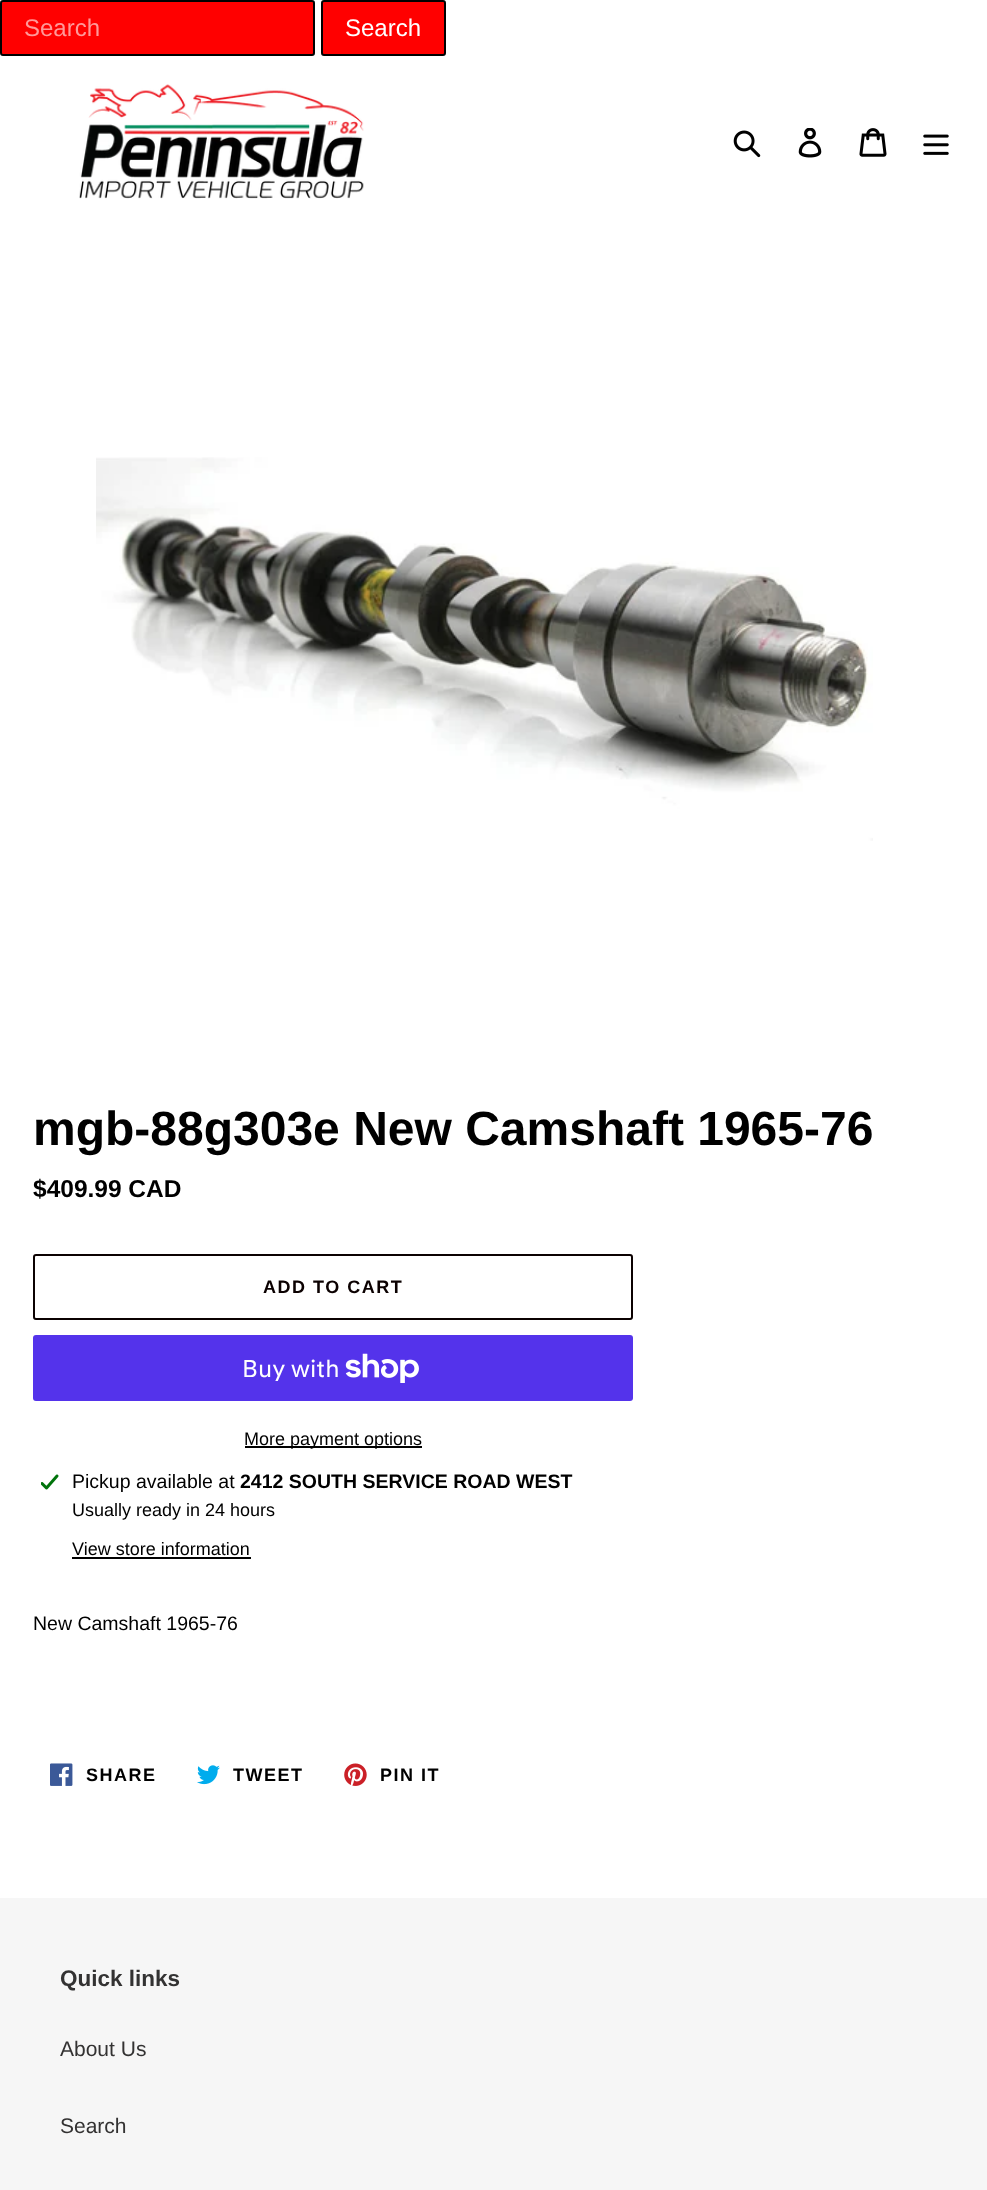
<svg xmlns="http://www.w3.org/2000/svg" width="987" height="2190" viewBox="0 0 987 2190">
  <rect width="100%" height="100%" fill="#ffffff"/>
  <rect x="1" y="1" width="313" height="54" rx="2" fill="#ff0000" stroke="#000000" stroke-width="2"/>
  <text x="24" y="36" font-family="Liberation Sans" font-size="24" fill="#ff9999">Search</text>
  <rect x="322" y="1" width="123" height="54" rx="2" fill="#ff0000" stroke="#000000" stroke-width="2"/>
  <text x="345" y="36" font-family="Liberation Sans" font-size="24" fill="#ffffff">Search</text>
  <image x="79" y="84" width="285" height="115" href="img1.png"/>
  <image x="733" y="130" width="28" height="28" href="img2.png"/>
  <image x="798" y="128" width="24" height="30" href="img3.png"/>
  <image x="859" y="128" width="28" height="29" href="img4.png"/>
  <image x="923" y="134" width="26" height="21" href="img5.png"/>
  <image x="96" y="457" width="777" height="384" href="img6.png"/>
  <text x="33" y="1145" font-family="Liberation Sans" font-size="48" font-weight="bold" fill="#000000">mgb-88g303e New Camshaft 1965-76</text>
  <text x="33" y="1197" font-family="Liberation Sans" font-size="24.5" font-weight="bold" fill="#000000">$409.99 CAD</text>
  <rect x="34" y="1255" width="598" height="64" rx="2" fill="none" stroke="#0b0101" stroke-width="2"/>
  <text x="263" y="1293" font-family="Liberation Sans" font-size="18" font-weight="bold" letter-spacing="1.5" fill="#0b0101">ADD TO CART</text>
  <rect x="33" y="1335" width="600" height="66" rx="3" fill="#5433eb"/>
  <text x="242" y="1377" font-family="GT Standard" font-size="24" fill="#ffffff">Buy with</text>
  <image x="345" y="1353" width="74" height="30" href="img7.png"/>
  <rect x="245" y="1446" width="177" height="2" fill="#000000"/>
  <text x="244" y="1445" font-family="Liberation Sans" font-size="18" fill="#000000">More payment options</text>
  <image x="41" y="1474" width="18" height="16" href="img8.png"/>
  <text x="72" y="1488" font-family="Liberation Sans" font-size="19.5" fill="#000000">Pickup available at</text>
  <text x="240" y="1488" font-family="Liberation Sans" font-size="19.5" font-weight="bold" fill="#000000">2412 SOUTH SERVICE ROAD WEST</text>
  <text x="72" y="1516" font-family="Liberation Sans" font-size="18" fill="#000000">Usually ready in 24 hours</text>
  <text x="72" y="1555" font-family="Liberation Sans" font-size="18" fill="#000000">View store information</text>
  <rect x="72" y="1557" width="179" height="2" fill="#000000"/>
  <text x="33" y="1630" font-family="Liberation Sans" font-size="19.5" fill="#000000">New Camshaft 1965-76</text>
  <image x="50" y="1763" width="23" height="23" href="img9.png"/>
  <text x="86" y="1781" font-family="Liberation Sans" font-size="18" font-weight="bold" letter-spacing="1.5" fill="#000000">SHARE</text>
  <image x="197" y="1765" width="23" height="20" href="img10.png"/>
  <text x="233" y="1781" font-family="Liberation Sans" font-size="18" font-weight="bold" letter-spacing="1.5" fill="#000000">TWEET</text>
  <image x="344" y="1763" width="23" height="23" href="img11.png"/>
  <text x="380" y="1781" font-family="Liberation Sans" font-size="18" font-weight="bold" letter-spacing="1.5" fill="#000000">PIN IT</text>
  <rect x="0" y="1898" width="987" height="292" fill="#f6f6f6"/>
  <text x="60" y="1986" font-family="Liberation Sans" font-size="22.5" font-weight="bold" fill="#333232">Quick links</text>
  <text x="60" y="2056" font-family="Liberation Sans" font-size="21" fill="#333232">About Us</text>
  <text x="60" y="2133" font-family="Liberation Sans" font-size="21" fill="#333232">Search</text>
</svg>
